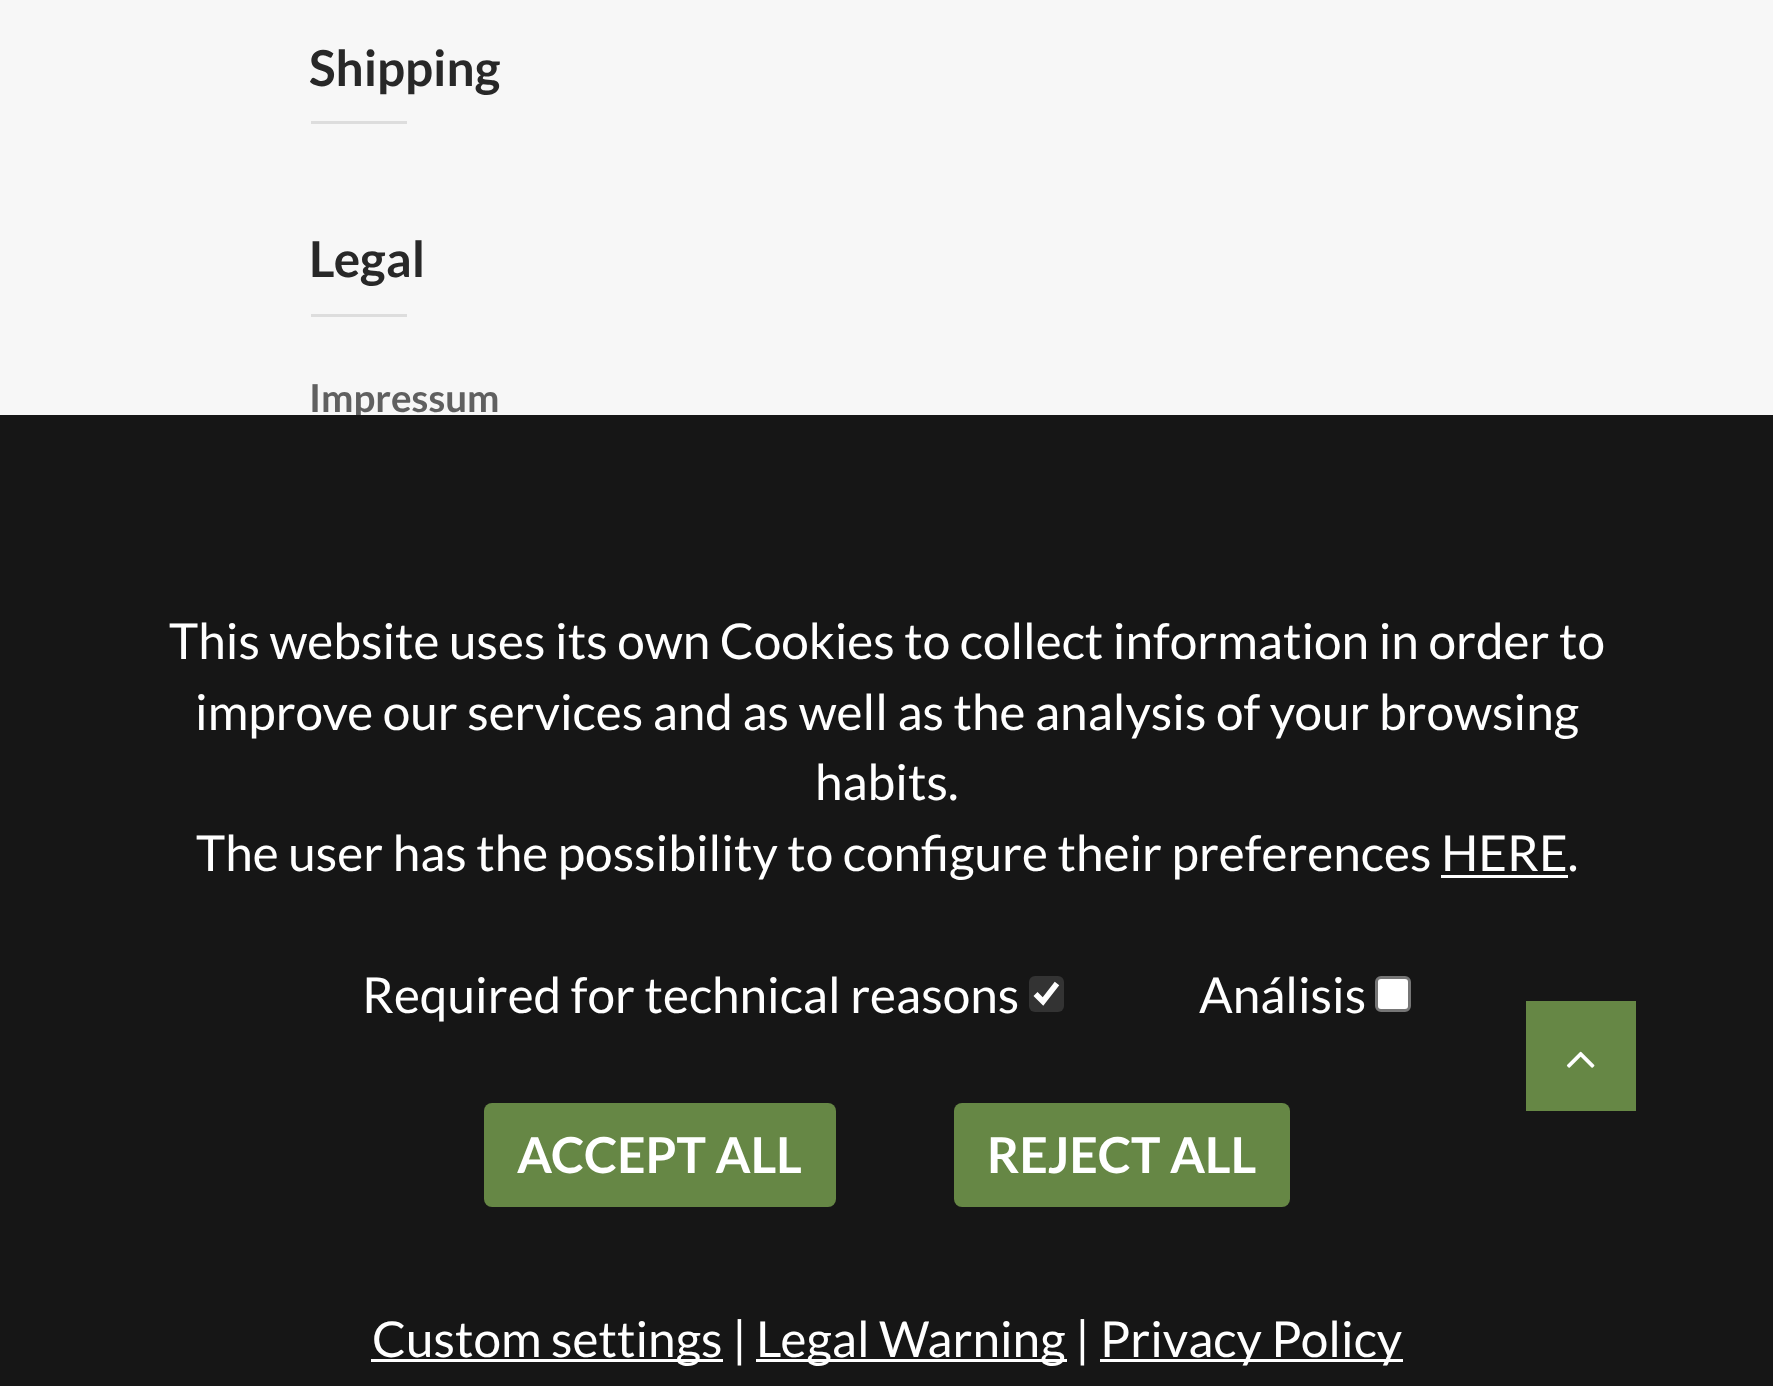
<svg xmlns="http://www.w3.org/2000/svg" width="1773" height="1386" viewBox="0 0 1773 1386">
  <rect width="100%" height="100%" fill="#f7f7f7"/>
  <text x="309" y="86" font-family="Lato" font-size="49.5" font-weight="bold" fill="#282828">Shipping</text>
  <rect x="311" y="121" width="96" height="3" fill="#dddddd"/>
  <text x="309" y="277" font-family="Lato" font-size="49.5" font-weight="bold" fill="#282828">Legal</text>
  <rect x="311" y="314" width="96" height="3" fill="#dddddd"/>
  <text x="309" y="412" font-family="Lato" font-size="38.5" font-weight="bold" fill="#606060">Impressum</text>
  <rect x="0" y="415" width="1773" height="971" fill="#161616"/>
  <text x="169" y="659" font-family="Lato" font-size="49.5" fill="#ffffff">This website uses its own Cookies to collect information in order to</text>
  <text x="195" y="730" font-family="Lato" font-size="49.5" fill="#ffffff">improve our services and as well as the analysis of your browsing</text>
  <text x="815" y="800" font-family="Lato" font-size="49.5" fill="#ffffff">habits.</text>
  <text x="196" y="871" font-family="Lato" font-size="49.5" fill="#ffffff">The user has the possibility to configure their preferences HERE.</text>
  <rect x="1441" y="875" width="127" height="3" fill="#ffffff"/>
  <text x="362" y="1013" font-family="Lato" font-size="49.5" fill="#ffffff">Required for technical reasons</text>
  <rect x="1029" y="976" width="35" height="36" rx="6" fill="#333333"/>
  <path d="M1035.5 994L1043 1001.5L1057 983.5" fill="none" stroke="#ffffff" stroke-width="5.7"/>
  <text x="1199" y="1013" font-family="Lato" font-size="49.5" fill="#ffffff">Análisis</text>
  <rect x="1376.5" y="977.5" width="33" height="33" rx="4.5" fill="#ffffff" stroke="#767676" stroke-width="3"/>
  <rect x="484" y="1103" width="352" height="104" rx="8" fill="#668745"/>
  <text x="517" y="1173" font-family="Lato" font-size="49.5" font-weight="bold" fill="#ffffff">ACCEPT ALL</text>
  <rect x="954" y="1103" width="336" height="104" rx="8" fill="#668745"/>
  <text x="987" y="1173" font-family="Lato" font-size="49.5" font-weight="bold" fill="#ffffff">REJECT ALL</text>
  <rect x="371" y="1359" width="352" height="3" fill="#ffffff"/>
  <text x="372" y="1357" font-family="Lato" font-size="49.5" fill="#ffffff">Custom settings |</text>
  <rect x="756" y="1359" width="311" height="3" fill="#ffffff"/>
  <text x="756" y="1357" font-family="Lato" font-size="49.5" fill="#ffffff">Legal Warning |</text>
  <rect x="1100" y="1359" width="303" height="3" fill="#ffffff"/>
  <text x="1100" y="1357" font-family="Lato" font-size="49.5" fill="#ffffff">Privacy Policy</text>
  <rect x="1526" y="1001" width="110" height="110" fill="#668745"/>
  <image x="1566" y="1051" width="29" height="17" href="img1.png"/>
</svg>
